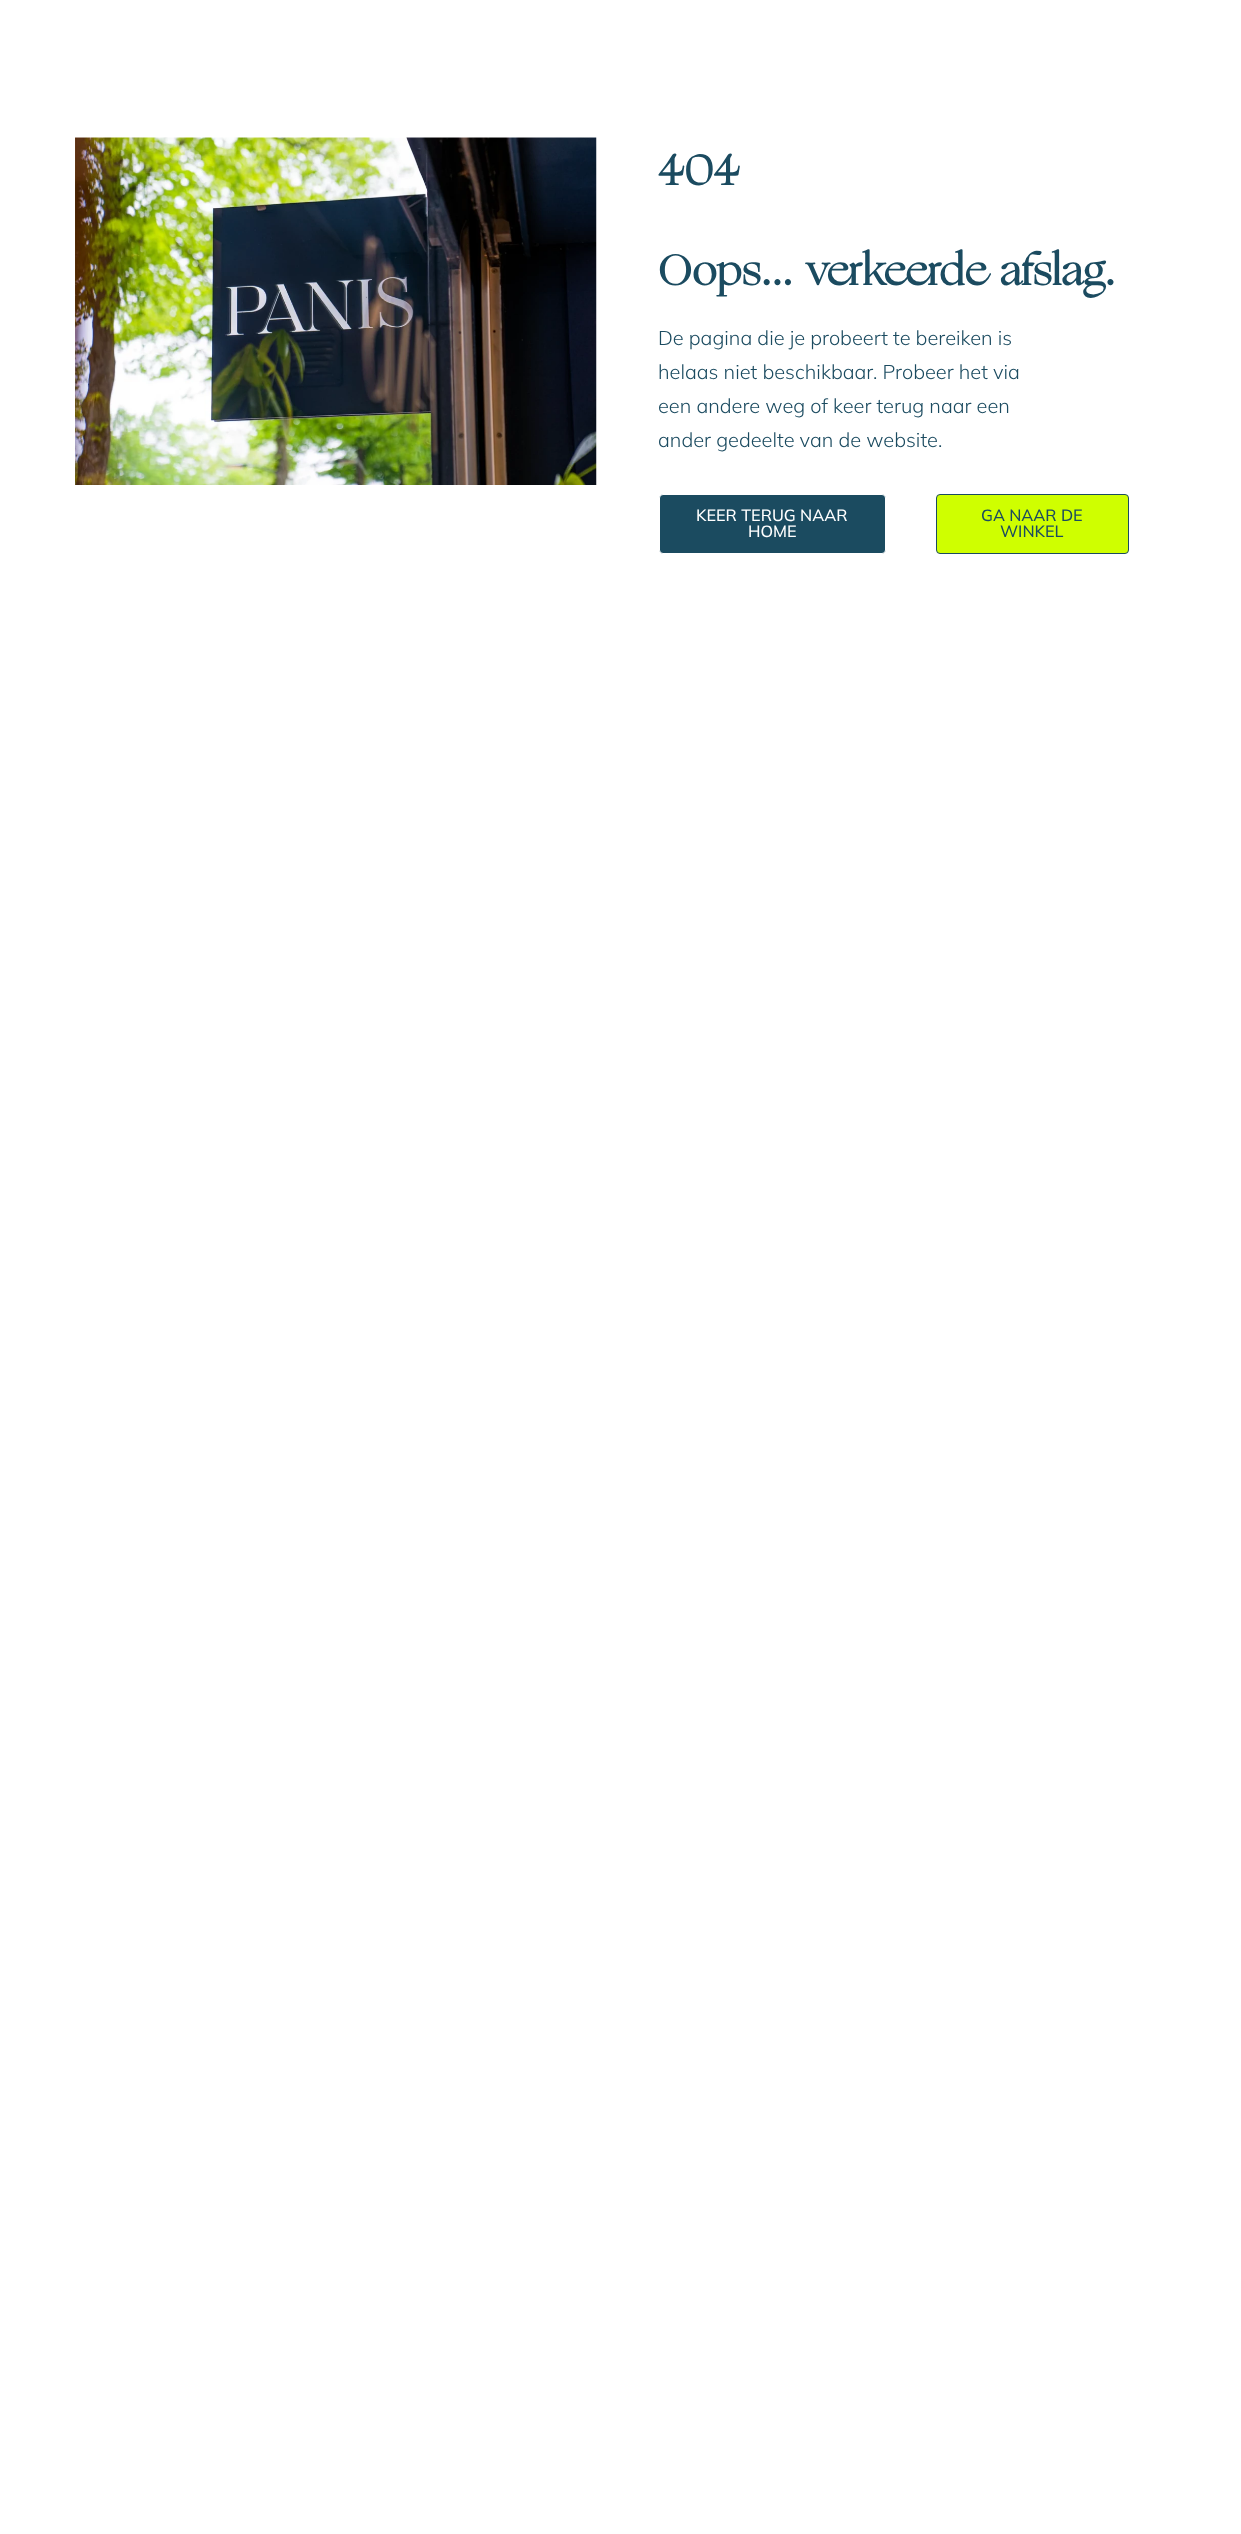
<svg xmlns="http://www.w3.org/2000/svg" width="1241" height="2534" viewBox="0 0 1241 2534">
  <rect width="100%" height="100%" fill="#ffffff"/>
  <image x="75" y="137" width="522" height="348" href="img1.png"/>
  <text x="658" y="185" font-family="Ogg" font-size="42.5" font-weight="bold" fill="#1b4b60">404</text>
  <text x="658" y="285" font-family="Ogg" font-size="42.5" font-weight="bold" fill="#1b4b60">Oops... verkeerde afslag.</text>
  <text x="658" y="345" font-family="Mulish" font-size="20" font-weight="300" fill="#1b4b60">De pagina die je probeert te bereiken is</text>
  <text x="658" y="379" font-family="Mulish" font-size="20" font-weight="300" fill="#1b4b60">helaas niet beschikbaar. Probeer het via</text>
  <text x="658" y="413" font-family="Mulish" font-size="20" font-weight="300" fill="#1b4b60">een andere weg of keer terug naar een</text>
  <text x="658" y="447" font-family="Mulish" font-size="20" font-weight="300" fill="#1b4b60">ander gedeelte van de website.</text>
  <rect x="659.5" y="494.5" width="226" height="59" rx="3.5" fill="#1b4b60" stroke="#ffffff"/>
  <text x="696" y="521" font-family="Mulish" font-size="16.25" font-weight="500" fill="#ffffff">KEER TERUG NAAR</text>
  <text x="748" y="537" font-family="Mulish" font-size="16.25" font-weight="500" fill="#ffffff">HOME</text>
  <rect x="936.5" y="494.5" width="192" height="59" rx="3.5" fill="#cfff00" stroke="#1b4b60"/>
  <text x="981" y="521" font-family="Mulish" font-size="16.25" font-weight="500" fill="#1b4b60">GA NAAR DE</text>
  <text x="1000" y="537" font-family="Mulish" font-size="16.25" font-weight="500" fill="#1b4b60">WINKEL</text>
</svg>
